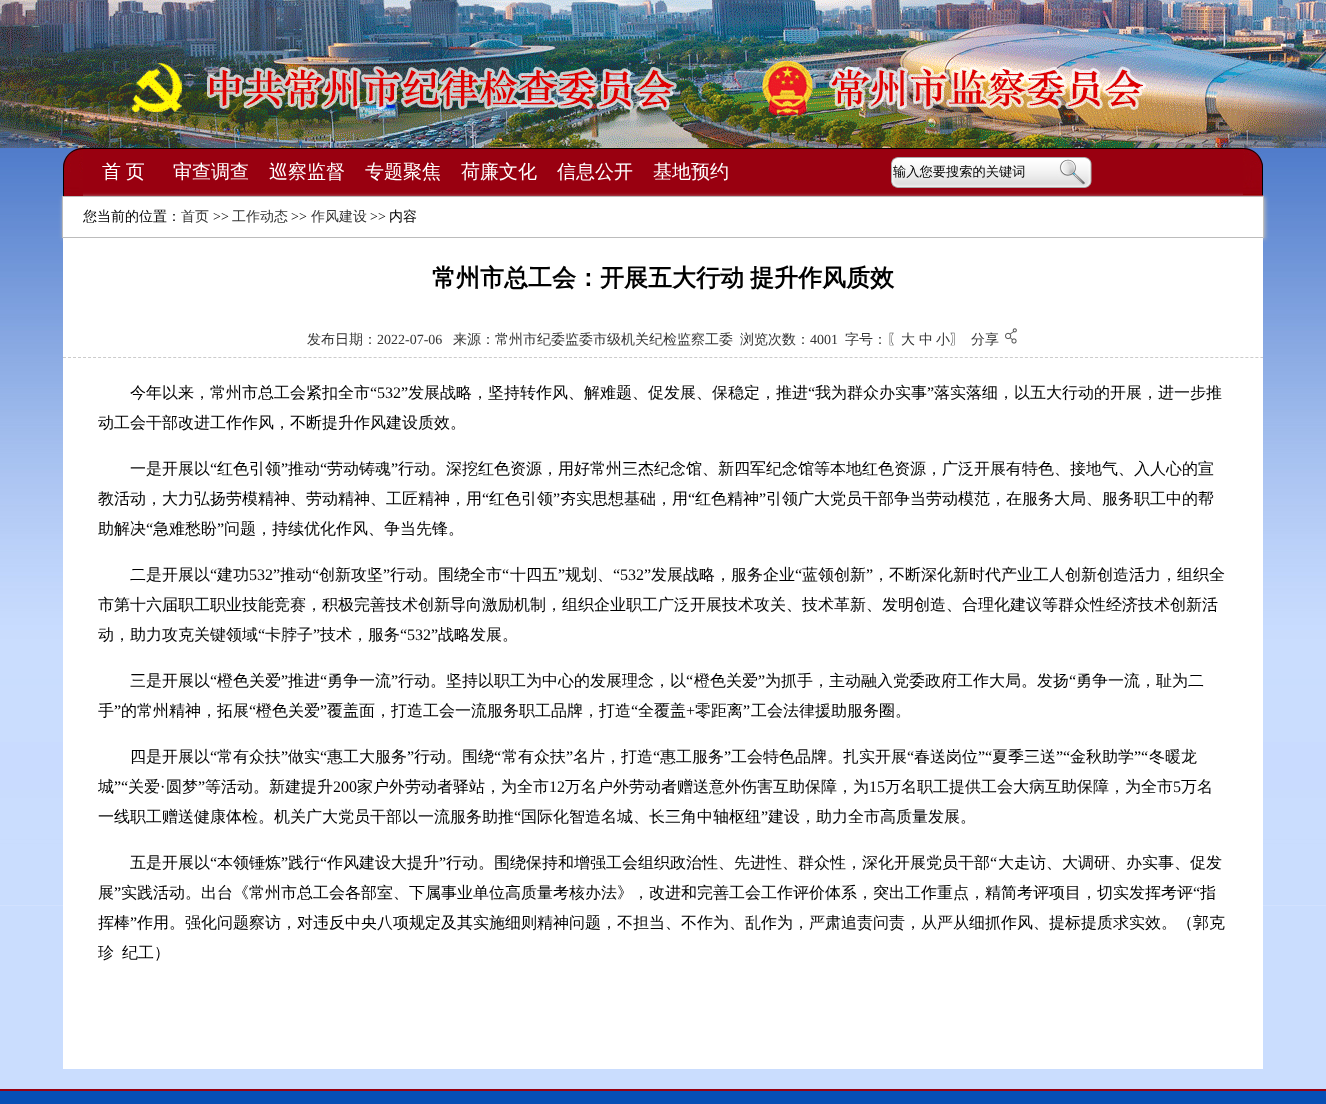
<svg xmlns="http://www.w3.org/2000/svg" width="1326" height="1104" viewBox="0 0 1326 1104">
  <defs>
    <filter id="blur1" x="-50%" y="-200%" width="200%" height="500%"><feGaussianBlur stdDeviation="2"/></filter>
  </defs>
  <rect width="100%" height="100%" fill="#caddfe"/>
  <image x="0" y="0" width="1326" height="148" href="img1.png"/>
  <image x="0" y="148" width="1326" height="758" href="img2.png"/>
  <rect x="83" y="149" width="1180" height="47" fill="#990010"/>
  <rect x="63" y="197" width="1202" height="42" fill="#bcbcbc" filter="url(#blur1)"/>
  <image x="63" y="148" width="20" height="48" href="img3.png"/>
  <rect x="83" y="148" width="1160" height="1" fill="#010101"/>
  <text x="102" y="178" word-spacing="-1" font-family="WenQuanYi Zen Hei" font-size="19" font-weight="500" fill="#ffffff">首 页</text>
  <text x="173" y="178" font-family="WenQuanYi Zen Hei" font-size="19" font-weight="500" fill="#ffffff">审查调查</text>
  <text x="269" y="178" font-family="WenQuanYi Zen Hei" font-size="19" font-weight="500" fill="#ffffff">巡察监督</text>
  <text x="365" y="178" font-family="WenQuanYi Zen Hei" font-size="19" font-weight="500" fill="#ffffff">专题聚焦</text>
  <text x="461" y="178" font-family="WenQuanYi Zen Hei" font-size="19" font-weight="500" fill="#ffffff">荷廉文化</text>
  <text x="557" y="178" font-family="WenQuanYi Zen Hei" font-size="19" font-weight="500" fill="#ffffff">信息公开</text>
  <text x="653" y="178" font-family="WenQuanYi Zen Hei" font-size="19" font-weight="500" fill="#ffffff">基地预约</text>
  <image x="891" y="157" width="164" height="31" href="img4.png"/>
  <text x="893" y="176" font-family="WenQuanYi Zen Hei" font-size="13.25" font-weight="500" fill="#000000">输入您要搜索的关键词</text>
  <image x="1055" y="157" width="37" height="31" href="img5.png"/>
  <image x="1243" y="148" width="20" height="47" href="img6.png"/>
  <rect x="62.5" y="196.5" width="1201" height="41" fill="#ffffff" stroke="#bcbcbc"/>
  <text x="83" y="221" font-family="WenQuanYi Zen Hei" font-size="14" font-weight="500" fill="#000000">您当前的位置：</text>
  <text x="181" y="221" font-family="WenQuanYi Zen Hei" font-size="14" font-weight="500" fill="#333333">首页</text>
  <text x="213" y="221" font-family="Liberation Serif" font-size="14" fill="#000000">&gt;&gt;</text>
  <text x="232" y="221" font-family="WenQuanYi Zen Hei" font-size="14" font-weight="500" fill="#333333">工作动态</text>
  <text x="291" y="221" font-family="Liberation Serif" font-size="14" fill="#000000">&gt;&gt;</text>
  <text x="311" y="221" font-family="WenQuanYi Zen Hei" font-size="14" font-weight="500" fill="#333333">作风建设</text>
  <text x="370" y="221" font-family="Liberation Serif" font-size="14" fill="#000000">&gt;&gt;</text>
  <text x="389" y="221" font-family="WenQuanYi Zen Hei" font-size="14" font-weight="500" fill="#000000">内容</text>
  <rect x="63" y="238" width="1200" height="831" fill="#ffffff"/>
  <text x="432" y="286" font-family="WenQuanYi Zen Hei" font-size="24" font-weight="bold" fill="#000000">常州市总工会：开展五大行动</text>
  <text x="750" y="286" font-family="WenQuanYi Zen Hei" font-size="24" font-weight="bold" fill="#000000">提升作风质效</text>
  <path d="M63 357.5H1263" fill="none" stroke="#cccccc" stroke-dasharray="3 2.01"/>
  <text x="307" y="344" font-family="WenQuanYi Zen Hei" font-size="14" font-weight="500" fill="#333333">发布日期：</text>
  <text x="377" y="344" font-family="Liberation Serif" font-size="14" fill="#333333">2022-07-06</text>
  <text x="453" y="344" font-family="WenQuanYi Zen Hei" font-size="14" font-weight="500" fill="#333333">来源：常州市纪委监委市级机关纪检监察工委</text>
  <text x="740" y="344" font-family="WenQuanYi Zen Hei" font-size="14" font-weight="500" fill="#333333">浏览次数：</text>
  <text x="810" y="344" font-family="Liberation Serif" font-size="14" fill="#333333">4001</text>
  <text x="845" y="344" font-family="WenQuanYi Zen Hei" font-size="14" font-weight="500" fill="#333333">字号：〖大</text>
  <text x="919" y="344" font-family="WenQuanYi Zen Hei" font-size="14" font-weight="500" fill="#333333">中</text>
  <text x="936" y="344" font-family="WenQuanYi Zen Hei" font-size="14" font-weight="500" fill="#333333">小〗</text>
  <text x="971" y="344" font-family="WenQuanYi Zen Hei" font-size="14" font-weight="500" fill="#333333">分享</text>
  <image x="1005" y="328" width="12" height="16" href="img7.png"/>
  <text x="130" y="398" font-family="WenQuanYi Zen Hei" font-size="16" font-weight="500" fill="#000000">今年以来，常州市总工会紧扣全市</text>
  <text x="370" y="398" font-family="Liberation Serif" font-size="16" fill="#000000">“532”</text>
  <text x="408" y="398" font-family="WenQuanYi Zen Hei" font-size="16" font-weight="500" fill="#000000">发展战略，坚持转作风、解难题、促发展、保稳定，推进</text>
  <text x="808" y="398" font-family="Liberation Serif" font-size="16" fill="#000000">“</text>
  <text x="815" y="398" font-family="WenQuanYi Zen Hei" font-size="16" font-weight="500" fill="#000000">我为群众办实事</text>
  <text x="927" y="398" font-family="Liberation Serif" font-size="16" fill="#000000">”</text>
  <text x="934" y="398" font-family="WenQuanYi Zen Hei" font-size="16" font-weight="500" fill="#000000">落实落细，以五大行动的开展，进一步推</text>
  <text x="98" y="428" font-family="WenQuanYi Zen Hei" font-size="16" font-weight="500" fill="#000000">动工会干部改进工作作风，不断提升作风建设质效。</text>
  <text x="130" y="474" font-family="WenQuanYi Zen Hei" font-size="16" font-weight="500" fill="#000000">一是开展以</text>
  <text x="210" y="474" font-family="Liberation Serif" font-size="16" fill="#000000">“</text>
  <text x="217" y="474" font-family="WenQuanYi Zen Hei" font-size="16" font-weight="500" fill="#000000">红色引领</text>
  <text x="281" y="474" font-family="Liberation Serif" font-size="16" fill="#000000">”</text>
  <text x="288" y="474" font-family="WenQuanYi Zen Hei" font-size="16" font-weight="500" fill="#000000">推动</text>
  <text x="320" y="474" font-family="Liberation Serif" font-size="16" fill="#000000">“</text>
  <text x="327" y="474" font-family="WenQuanYi Zen Hei" font-size="16" font-weight="500" fill="#000000">劳动铸魂</text>
  <text x="391" y="474" font-family="Liberation Serif" font-size="16" fill="#000000">”</text>
  <text x="398" y="474" font-family="WenQuanYi Zen Hei" font-size="16" font-weight="500" fill="#000000">行动。深挖红色资源，用好常州三杰纪念馆、新四军纪念馆等本地红色资源，广泛开展有特色、接地气、入人心的宣</text>
  <text x="98" y="504" font-family="WenQuanYi Zen Hei" font-size="16" font-weight="500" fill="#000000">教活动，大力弘扬劳模精神、劳动精神、工匠精神，用</text>
  <text x="482" y="504" font-family="Liberation Serif" font-size="16" fill="#000000">“</text>
  <text x="489" y="504" font-family="WenQuanYi Zen Hei" font-size="16" font-weight="500" fill="#000000">红色引领</text>
  <text x="553" y="504" font-family="Liberation Serif" font-size="16" fill="#000000">”</text>
  <text x="560" y="504" font-family="WenQuanYi Zen Hei" font-size="16" font-weight="500" fill="#000000">夯实思想基础，用</text>
  <text x="688" y="504" font-family="Liberation Serif" font-size="16" fill="#000000">“</text>
  <text x="695" y="504" font-family="WenQuanYi Zen Hei" font-size="16" font-weight="500" fill="#000000">红色精神</text>
  <text x="759" y="504" font-family="Liberation Serif" font-size="16" fill="#000000">”</text>
  <text x="766" y="504" font-family="WenQuanYi Zen Hei" font-size="16" font-weight="500" fill="#000000">引领广大党员干部争当劳动模范，在服务大局、服务职工中的帮</text>
  <text x="98" y="534" font-family="WenQuanYi Zen Hei" font-size="16" font-weight="500" fill="#000000">助解决</text>
  <text x="146" y="534" font-family="Liberation Serif" font-size="16" fill="#000000">“</text>
  <text x="153" y="534" font-family="WenQuanYi Zen Hei" font-size="16" font-weight="500" fill="#000000">急难愁盼</text>
  <text x="217" y="534" font-family="Liberation Serif" font-size="16" fill="#000000">”</text>
  <text x="224" y="534" font-family="WenQuanYi Zen Hei" font-size="16" font-weight="500" fill="#000000">问题，持续优化作风、争当先锋。</text>
  <text x="130" y="580" font-family="WenQuanYi Zen Hei" font-size="16" font-weight="500" fill="#000000">二是开展以</text>
  <text x="210" y="580" font-family="Liberation Serif" font-size="16" fill="#000000">“</text>
  <text x="217" y="580" font-family="WenQuanYi Zen Hei" font-size="16" font-weight="500" fill="#000000">建功</text>
  <text x="249" y="580" font-family="Liberation Serif" font-size="16" fill="#000000">532”</text>
  <text x="280" y="580" font-family="WenQuanYi Zen Hei" font-size="16" font-weight="500" fill="#000000">推动</text>
  <text x="312" y="580" font-family="Liberation Serif" font-size="16" fill="#000000">“</text>
  <text x="319" y="580" font-family="WenQuanYi Zen Hei" font-size="16" font-weight="500" fill="#000000">创新攻坚</text>
  <text x="383" y="580" font-family="Liberation Serif" font-size="16" fill="#000000">”</text>
  <text x="390" y="580" font-family="WenQuanYi Zen Hei" font-size="16" font-weight="500" fill="#000000">行动。围绕全市</text>
  <text x="502" y="580" font-family="Liberation Serif" font-size="16" fill="#000000">“</text>
  <text x="510" y="580" font-family="WenQuanYi Zen Hei" font-size="16" font-weight="500" fill="#000000">十四五</text>
  <text x="558" y="580" font-family="Liberation Serif" font-size="16" fill="#000000">”</text>
  <text x="565" y="580" font-family="WenQuanYi Zen Hei" font-size="16" font-weight="500" fill="#000000">规划、</text>
  <text x="613" y="580" font-family="Liberation Serif" font-size="16" fill="#000000">“532”</text>
  <text x="651" y="580" font-family="WenQuanYi Zen Hei" font-size="16" font-weight="500" fill="#000000">发展战略，服务企业</text>
  <text x="795" y="580" font-family="Liberation Serif" font-size="16" fill="#000000">“</text>
  <text x="802" y="580" font-family="WenQuanYi Zen Hei" font-size="16" font-weight="500" fill="#000000">蓝领创新</text>
  <text x="866" y="580" font-family="Liberation Serif" font-size="16" fill="#000000">”</text>
  <text x="873" y="580" font-family="WenQuanYi Zen Hei" font-size="16" font-weight="500" fill="#000000">，不断深化新时代产业工人创新创造活力，组织全</text>
  <text x="98" y="610" font-family="WenQuanYi Zen Hei" font-size="16" font-weight="500" fill="#000000">市第十六届职工职业技能竞赛，积极完善技术创新导向激励机制，组织企业职工广泛开展技术攻关、技术革新、发明创造、合理化建议等群众性经济技术创新活</text>
  <text x="98" y="640" font-family="WenQuanYi Zen Hei" font-size="16" font-weight="500" fill="#000000">动，助力攻克关键领域</text>
  <text x="258" y="640" font-family="Liberation Serif" font-size="16" fill="#000000">“</text>
  <text x="265" y="640" font-family="WenQuanYi Zen Hei" font-size="16" font-weight="500" fill="#000000">卡脖子</text>
  <text x="313" y="640" font-family="Liberation Serif" font-size="16" fill="#000000">”</text>
  <text x="320" y="640" font-family="WenQuanYi Zen Hei" font-size="16" font-weight="500" fill="#000000">技术，服务</text>
  <text x="400" y="640" font-family="Liberation Serif" font-size="16" fill="#000000">“532”</text>
  <text x="438" y="640" font-family="WenQuanYi Zen Hei" font-size="16" font-weight="500" fill="#000000">战略发展。</text>
  <text x="130" y="686" font-family="WenQuanYi Zen Hei" font-size="16" font-weight="500" fill="#000000">三是开展以</text>
  <text x="210" y="686" font-family="Liberation Serif" font-size="16" fill="#000000">“</text>
  <text x="217" y="686" font-family="WenQuanYi Zen Hei" font-size="16" font-weight="500" fill="#000000">橙色关爱</text>
  <text x="281" y="686" font-family="Liberation Serif" font-size="16" fill="#000000">”</text>
  <text x="288" y="686" font-family="WenQuanYi Zen Hei" font-size="16" font-weight="500" fill="#000000">推进</text>
  <text x="320" y="686" font-family="Liberation Serif" font-size="16" fill="#000000">“</text>
  <text x="327" y="686" font-family="WenQuanYi Zen Hei" font-size="16" font-weight="500" fill="#000000">勇争一流</text>
  <text x="391" y="686" font-family="Liberation Serif" font-size="16" fill="#000000">”</text>
  <text x="398" y="686" font-family="WenQuanYi Zen Hei" font-size="16" font-weight="500" fill="#000000">行动。坚持以职工为中心的发展理念，以</text>
  <text x="686" y="686" font-family="Liberation Serif" font-size="16" fill="#000000">“</text>
  <text x="694" y="686" font-family="WenQuanYi Zen Hei" font-size="16" font-weight="500" fill="#000000">橙色关爱</text>
  <text x="758" y="686" font-family="Liberation Serif" font-size="16" fill="#000000">”</text>
  <text x="765" y="686" font-family="WenQuanYi Zen Hei" font-size="16" font-weight="500" fill="#000000">为抓手，主动融入党委政府工作大局。发扬</text>
  <text x="1069" y="686" font-family="Liberation Serif" font-size="16" fill="#000000">“</text>
  <text x="1076" y="686" font-family="WenQuanYi Zen Hei" font-size="16" font-weight="500" fill="#000000">勇争一流，耻为二</text>
  <text x="98" y="716" font-family="WenQuanYi Zen Hei" font-size="16" font-weight="500" fill="#000000">手</text>
  <text x="114" y="716" font-family="Liberation Serif" font-size="16" fill="#000000">”</text>
  <text x="121" y="716" font-family="WenQuanYi Zen Hei" font-size="16" font-weight="500" fill="#000000">的常州精神，拓展</text>
  <text x="249" y="716" font-family="Liberation Serif" font-size="16" fill="#000000">“</text>
  <text x="256" y="716" font-family="WenQuanYi Zen Hei" font-size="16" font-weight="500" fill="#000000">橙色关爱</text>
  <text x="320" y="716" font-family="Liberation Serif" font-size="16" fill="#000000">”</text>
  <text x="327" y="716" font-family="WenQuanYi Zen Hei" font-size="16" font-weight="500" fill="#000000">覆盖面，打造工会一流服务职工品牌，打造</text>
  <text x="631" y="716" font-family="Liberation Serif" font-size="16" fill="#000000">“</text>
  <text x="638" y="716" font-family="WenQuanYi Zen Hei" font-size="16" font-weight="500" fill="#000000">全覆盖</text>
  <text x="686" y="716" font-family="Liberation Serif" font-size="16" fill="#000000">+</text>
  <text x="695" y="716" font-family="WenQuanYi Zen Hei" font-size="16" font-weight="500" fill="#000000">零距离</text>
  <text x="743" y="716" font-family="Liberation Serif" font-size="16" fill="#000000">”</text>
  <text x="751" y="716" font-family="WenQuanYi Zen Hei" font-size="16" font-weight="500" fill="#000000">工会法律援助服务圈。</text>
  <text x="130" y="762" font-family="WenQuanYi Zen Hei" font-size="16" font-weight="500" fill="#000000">四是开展以</text>
  <text x="210" y="762" font-family="Liberation Serif" font-size="16" fill="#000000">“</text>
  <text x="217" y="762" font-family="WenQuanYi Zen Hei" font-size="16" font-weight="500" fill="#000000">常有众扶</text>
  <text x="281" y="762" font-family="Liberation Serif" font-size="16" fill="#000000">”</text>
  <text x="288" y="762" font-family="WenQuanYi Zen Hei" font-size="16" font-weight="500" fill="#000000">做实</text>
  <text x="320" y="762" font-family="Liberation Serif" font-size="16" fill="#000000">“</text>
  <text x="327" y="762" font-family="WenQuanYi Zen Hei" font-size="16" font-weight="500" fill="#000000">惠工大服务</text>
  <text x="407" y="762" font-family="Liberation Serif" font-size="16" fill="#000000">”</text>
  <text x="414" y="762" font-family="WenQuanYi Zen Hei" font-size="16" font-weight="500" fill="#000000">行动。围绕</text>
  <text x="494" y="762" font-family="Liberation Serif" font-size="16" fill="#000000">“</text>
  <text x="502" y="762" font-family="WenQuanYi Zen Hei" font-size="16" font-weight="500" fill="#000000">常有众扶</text>
  <text x="566" y="762" font-family="Liberation Serif" font-size="16" fill="#000000">”</text>
  <text x="573" y="762" font-family="WenQuanYi Zen Hei" font-size="16" font-weight="500" fill="#000000">名片，打造</text>
  <text x="653" y="762" font-family="Liberation Serif" font-size="16" fill="#000000">“</text>
  <text x="660" y="762" font-family="WenQuanYi Zen Hei" font-size="16" font-weight="500" fill="#000000">惠工服务</text>
  <text x="724" y="762" font-family="Liberation Serif" font-size="16" fill="#000000">”</text>
  <text x="731" y="762" font-family="WenQuanYi Zen Hei" font-size="16" font-weight="500" fill="#000000">工会特色品牌。扎实开展</text>
  <text x="907" y="762" font-family="Liberation Serif" font-size="16" fill="#000000">“</text>
  <text x="914" y="762" font-family="WenQuanYi Zen Hei" font-size="16" font-weight="500" fill="#000000">春送岗位</text>
  <text x="978" y="762" font-family="Liberation Serif" font-size="16" fill="#000000">”“</text>
  <text x="992" y="762" font-family="WenQuanYi Zen Hei" font-size="16" font-weight="500" fill="#000000">夏季三送</text>
  <text x="1056" y="762" font-family="Liberation Serif" font-size="16" fill="#000000">”“</text>
  <text x="1070" y="762" font-family="WenQuanYi Zen Hei" font-size="16" font-weight="500" fill="#000000">金秋助学</text>
  <text x="1134" y="762" font-family="Liberation Serif" font-size="16" fill="#000000">”“</text>
  <text x="1149" y="762" font-family="WenQuanYi Zen Hei" font-size="16" font-weight="500" fill="#000000">冬暖龙</text>
  <text x="98" y="792" font-family="WenQuanYi Zen Hei" font-size="16" font-weight="500" fill="#000000">城</text>
  <text x="114" y="792" font-family="Liberation Serif" font-size="16" fill="#000000">”“</text>
  <text x="128" y="792" font-family="WenQuanYi Zen Hei" font-size="16" font-weight="500" fill="#000000">关爱</text>
  <text x="160" y="792" font-family="Liberation Serif" font-size="16" fill="#000000">·</text>
  <text x="166" y="792" font-family="WenQuanYi Zen Hei" font-size="16" font-weight="500" fill="#000000">圆梦</text>
  <text x="198" y="792" font-family="Liberation Serif" font-size="16" fill="#000000">”</text>
  <text x="205" y="792" font-family="WenQuanYi Zen Hei" font-size="16" font-weight="500" fill="#000000">等活动。新建提升</text>
  <text x="333" y="792" font-family="Liberation Serif" font-size="16" fill="#000000">200</text>
  <text x="357" y="792" font-family="WenQuanYi Zen Hei" font-size="16" font-weight="500" fill="#000000">家户外劳动者驿站，为全市</text>
  <text x="549" y="792" font-family="Liberation Serif" font-size="16" fill="#000000">12</text>
  <text x="565" y="792" font-family="WenQuanYi Zen Hei" font-size="16" font-weight="500" fill="#000000">万名户外劳动者赠送意外伤害互助保障，为</text>
  <text x="869" y="792" font-family="Liberation Serif" font-size="16" fill="#000000">15</text>
  <text x="885" y="792" font-family="WenQuanYi Zen Hei" font-size="16" font-weight="500" fill="#000000">万名职工提供工会大病互助保障，为全市</text>
  <text x="1173" y="792" font-family="Liberation Serif" font-size="16" fill="#000000">5</text>
  <text x="1181" y="792" font-family="WenQuanYi Zen Hei" font-size="16" font-weight="500" fill="#000000">万名</text>
  <text x="98" y="822" font-family="WenQuanYi Zen Hei" font-size="16" font-weight="500" fill="#000000">一线职工赠送健康体检。机关广大党员干部以一流服务助推</text>
  <text x="514" y="822" font-family="Liberation Serif" font-size="16" fill="#000000">“</text>
  <text x="521" y="822" font-family="WenQuanYi Zen Hei" font-size="16" font-weight="500" fill="#000000">国际化智造名城、长三角中轴枢纽</text>
  <text x="761" y="822" font-family="Liberation Serif" font-size="16" fill="#000000">”</text>
  <text x="768" y="822" font-family="WenQuanYi Zen Hei" font-size="16" font-weight="500" fill="#000000">建设，助力全市高质量发展。</text>
  <text x="130" y="868" font-family="WenQuanYi Zen Hei" font-size="16" font-weight="500" fill="#000000">五是开展以</text>
  <text x="210" y="868" font-family="Liberation Serif" font-size="16" fill="#000000">“</text>
  <text x="217" y="868" font-family="WenQuanYi Zen Hei" font-size="16" font-weight="500" fill="#000000">本领锤炼</text>
  <text x="281" y="868" font-family="Liberation Serif" font-size="16" fill="#000000">”</text>
  <text x="288" y="868" font-family="WenQuanYi Zen Hei" font-size="16" font-weight="500" fill="#000000">践行</text>
  <text x="320" y="868" font-family="Liberation Serif" font-size="16" fill="#000000">“</text>
  <text x="327" y="868" font-family="WenQuanYi Zen Hei" font-size="16" font-weight="500" fill="#000000">作风建设大提升</text>
  <text x="439" y="868" font-family="Liberation Serif" font-size="16" fill="#000000">”</text>
  <text x="446" y="868" font-family="WenQuanYi Zen Hei" font-size="16" font-weight="500" fill="#000000">行动。围绕保持和增强工会组织政治性、先进性、群众性，深化开展党员干部</text>
  <text x="990" y="868" font-family="Liberation Serif" font-size="16" fill="#000000">“</text>
  <text x="998" y="868" font-family="WenQuanYi Zen Hei" font-size="16" font-weight="500" fill="#000000">大走访、大调研、办实事、促发</text>
  <text x="98" y="898" font-family="WenQuanYi Zen Hei" font-size="16" font-weight="500" fill="#000000">展</text>
  <text x="114" y="898" font-family="Liberation Serif" font-size="16" fill="#000000">”</text>
  <text x="121" y="898" font-family="WenQuanYi Zen Hei" font-size="16" font-weight="500" fill="#000000">实践活动。出台《常州市总工会各部室、下属事业单位高质量考核办法》，改进和完善工会工作评价体系，突出工作重点，精简考评项目，切实发挥考评</text>
  <text x="1193" y="898" font-family="Liberation Serif" font-size="16" fill="#000000">“</text>
  <text x="1200" y="898" font-family="WenQuanYi Zen Hei" font-size="16" font-weight="500" fill="#000000">指</text>
  <text x="98" y="928" font-family="WenQuanYi Zen Hei" font-size="16" font-weight="500" fill="#000000">挥棒</text>
  <text x="130" y="928" font-family="Liberation Serif" font-size="16" fill="#000000">”</text>
  <text x="137" y="928" font-family="WenQuanYi Zen Hei" font-size="16" font-weight="500" fill="#000000">作用。强化问题察访，对违反中央八项规定及其实施细则精神问题，不担当、不作为、乱作为，严肃追责问责，从严从细抓作风、提标提质求实效。（郭克</text>
  <text x="98" y="958" font-family="WenQuanYi Zen Hei" font-size="16" font-weight="500" fill="#000000">珍</text>
  <text x="122" y="958" font-family="WenQuanYi Zen Hei" font-size="16" font-weight="500" fill="#000000">纪工）</text>
  <rect x="0" y="1091" width="1326" height="13" fill="#064fb5"/>
  <rect x="0" y="1089" width="1326" height="2" fill="#990010"/>
</svg>
